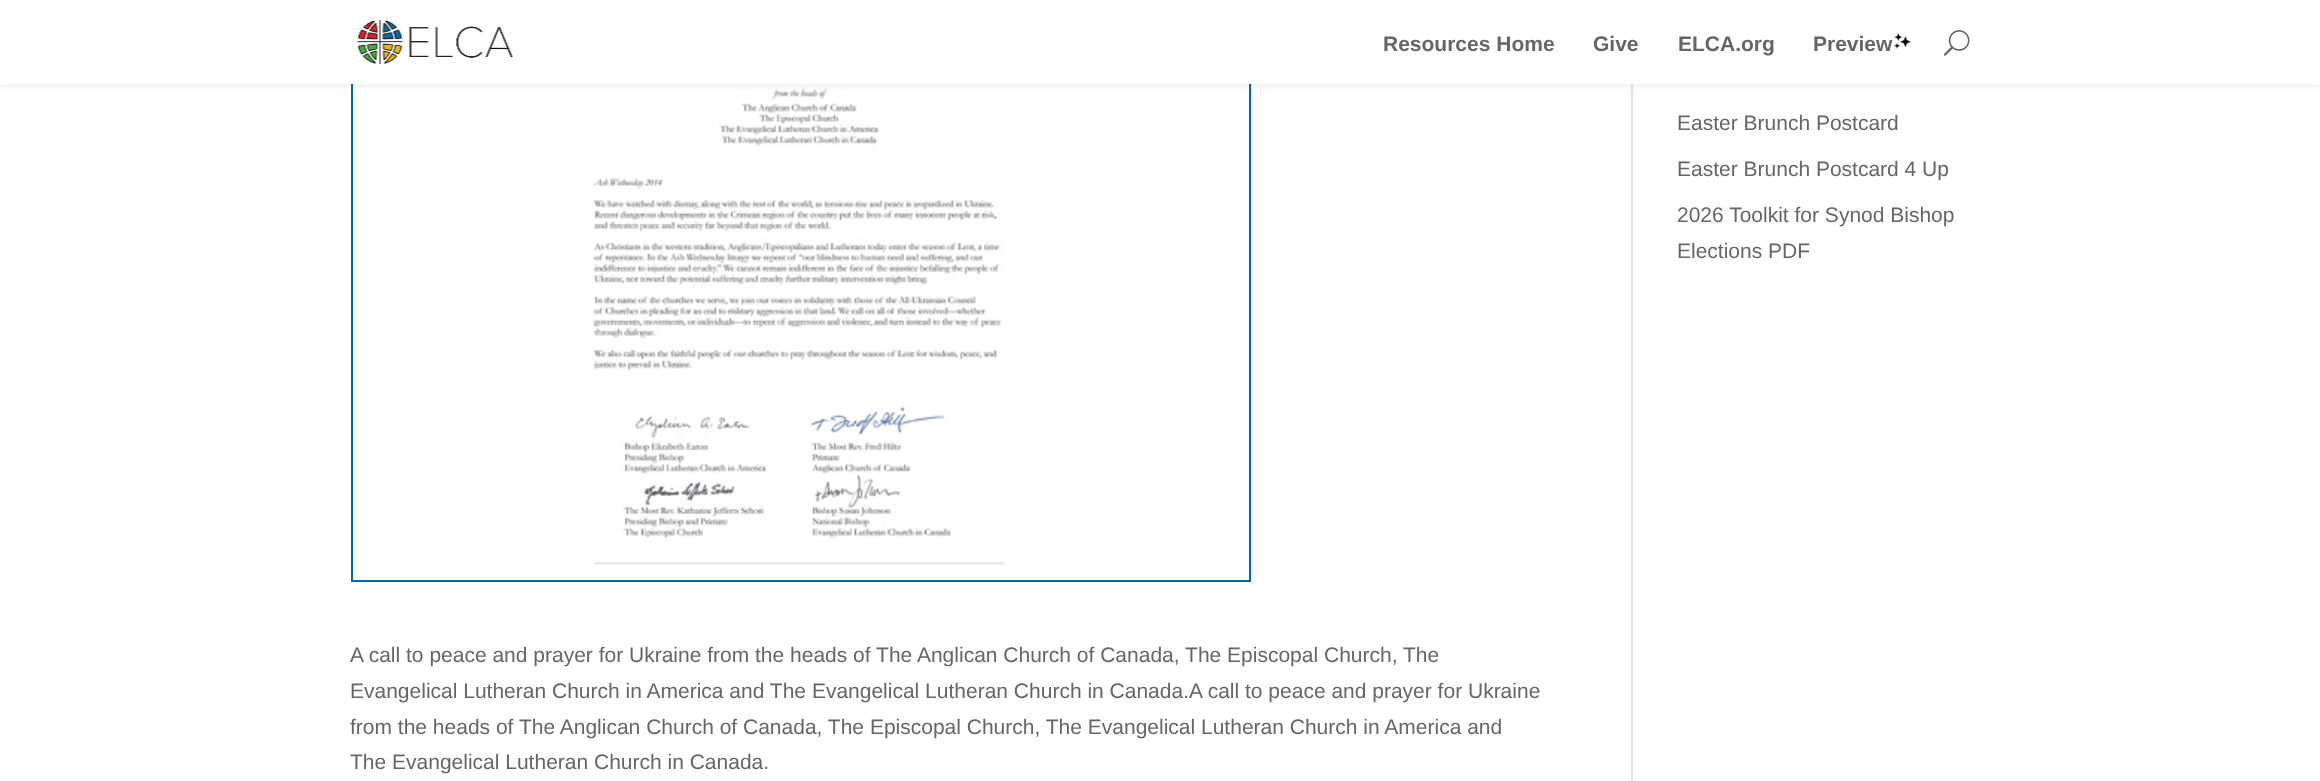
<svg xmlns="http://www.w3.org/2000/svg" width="2320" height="781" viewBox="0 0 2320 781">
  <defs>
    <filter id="blur1" x="-50%" y="-200%" width="200%" height="500%"><feGaussianBlur stdDeviation="5"/></filter>
  </defs>
  <rect width="100%" height="100%" fill="#ffffff"/>
  <rect x="1631" y="84" width="2" height="697" fill="#e2e2e2"/>
  <rect x="352" y="-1" width="898" height="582" fill="none" stroke="#0069aa" stroke-width="2"/>
  <image x="593" y="84" width="413" height="481" href="img4.png"/>
  <rect x="0" y="0" width="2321" height="84" fill="#000000" fill-opacity="0.1" filter="url(#blur1)"/>
  <rect x="0" y="0" width="2320" height="84" fill="#ffffff"/>
  <image x="357" y="20" width="156" height="44" href="img1.png"/>
  <text x="1383" y="51" font-family="Liberation Sans" font-size="21" font-weight="bold" fill="#666666">Resources Home</text>
  <text x="1593" y="51" font-family="Liberation Sans" font-size="21" font-weight="bold" fill="#666666">Give</text>
  <text x="1678" y="51" font-family="Liberation Sans" font-size="21" font-weight="bold" fill="#666666">ELCA.org</text>
  <text x="1813" y="51" font-family="Liberation Sans" font-size="21" font-weight="bold" fill="#666666">Preview</text>
  <image x="1893" y="33" width="18" height="16" href="img2.png"/>
  <image x="1943" y="30" width="27" height="26" href="img3.png"/>
  <text x="1677" y="130" font-family="Liberation Sans" font-size="21" fill="#666666">Easter Brunch Postcard</text>
  <text x="1677" y="176" font-family="Liberation Sans" font-size="21" fill="#666666">Easter Brunch Postcard 4 Up</text>
  <text x="1677" y="222" font-family="Liberation Sans" font-size="21" fill="#666666">2026 Toolkit for Synod Bishop</text>
  <text x="1677" y="258" font-family="Liberation Sans" font-size="21" fill="#666666">Elections PDF</text>
  <text x="350" y="662" font-family="Liberation Sans" font-size="21" fill="#666666">A call to peace and prayer for Ukraine from the heads of The Anglican Church of Canada, The Episcopal Church, The</text>
  <text x="350" y="698" font-family="Liberation Sans" font-size="21" fill="#666666">Evangelical Lutheran Church in America and The Evangelical Lutheran Church in Canada.A call to peace and prayer for Ukraine</text>
  <text x="350" y="734" font-family="Liberation Sans" font-size="21" fill="#666666">from the heads of The Anglican Church of Canada, The Episcopal Church, The Evangelical Lutheran Church in America and</text>
  <text x="350" y="769" font-family="Liberation Sans" font-size="21" fill="#666666">The Evangelical Lutheran Church in Canada.</text>
</svg>
